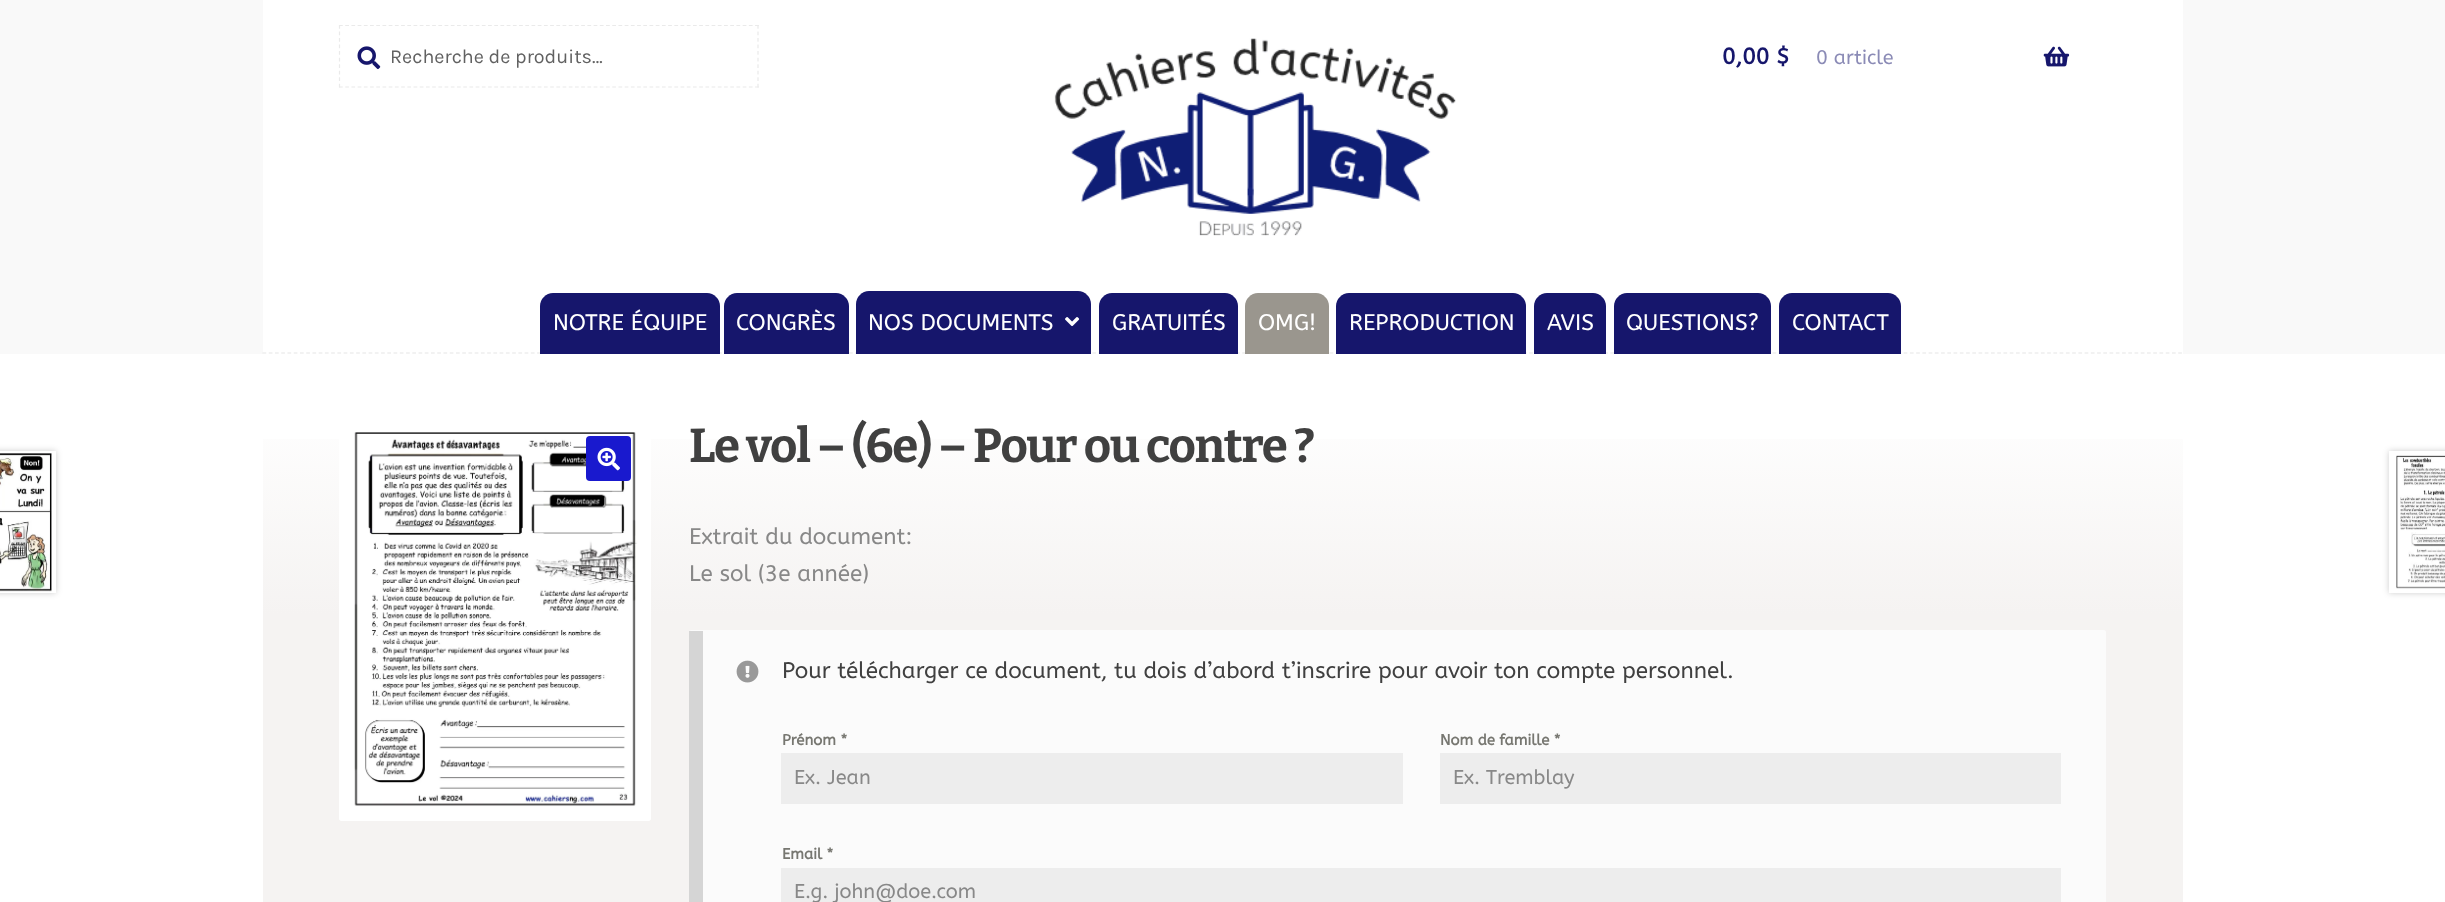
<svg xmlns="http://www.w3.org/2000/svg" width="2445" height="902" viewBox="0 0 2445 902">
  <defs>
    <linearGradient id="g1" gradientUnits="userSpaceOnUse" x1="1222" y1="354" x2="1223" y2="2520"><stop offset="0.02" stop-color="#ffffff"/><stop offset="0.12" stop-color="#f5f3f2"/></linearGradient>
    <filter id="blur1" x="-50%" y="-200%" width="200%" height="500%"><feGaussianBlur stdDeviation="3"/></filter>
  </defs>
  <rect width="100%" height="100%" fill="#ffffff"/>
  <rect x="0" y="0" width="2445" height="354" fill="#f9f9f9"/>
  <rect x="263" y="0" width="1920" height="354" fill="#ffffff"/>
  <image x="357" y="46" width="24" height="24" href="img1.png"/>
  <path d="M339 25.5H759" fill="none" stroke="#eaeaea" stroke-width="1.2" stroke-dasharray="3.75 2.46"/>
  <path d="M758 25V87.5" fill="none" stroke="#eaeaea" stroke-width="1.2" stroke-dasharray="3.75 2.78"/>
  <path d="M339 87H759" fill="none" stroke="#eaeaea" stroke-width="1.2" stroke-dasharray="3.75 2.46"/>
  <path d="M339.5 25V87.5" fill="none" stroke="#eaeaea" stroke-width="1.2" stroke-dasharray="3.75 2.78"/>
  <text x="390" y="63" font-family="Karla" font-size="19.75" fill="#616161">Recherche de produits…</text>
  <image x="1054" y="38" width="402" height="198" href="img2.png"/>
  <text x="1722" y="64" font-family="ABeeZee" font-size="22.5" font-weight="bold" fill="#16166c">0,00 $</text>
  <text x="1816" y="64" font-family="ABeeZee" font-size="19.75" fill="#8b8bb6">0 article</text>
  <image x="2043" y="46" width="27" height="21" href="img3.png"/>
  <path d="M262.5 353H2182.5" fill="none" stroke="#e6e6e6" stroke-width="1.2" stroke-dasharray="3.75 2.49"/>
  <path d="M553 293H707C714 293 720 299 720 306V354H540V306C540 299 546 293 553 293Z" fill="#16166c"/>
  <text x="553" y="330" font-family="ABeeZee" font-size="22.5" fill="#ffffff">NOTRE ÉQUIPE</text>
  <path d="M737 293H836C843 293 849 299 849 306V354H724V306C724 299 730 293 737 293Z" fill="#16166c"/>
  <text x="736" y="330" font-family="ABeeZee" font-size="22.5" fill="#ffffff">CONGRÈS</text>
  <path d="M869 291H1078C1085 291 1091 297 1091 304V354H856V304C856 297 862 291 869 291Z" fill="#16166c"/>
  <text x="868" y="330" font-family="ABeeZee" font-size="22.5" fill="#ffffff">NOS DOCUMENTS</text>
  <image x="1065" y="317" width="15" height="10" href="img4.png"/>
  <path d="M1112 293H1225C1232 293 1238 299 1238 306V354H1099V306C1099 299 1105 293 1112 293Z" fill="#16166c"/>
  <text x="1112" y="330" font-family="ABeeZee" font-size="22.5" fill="#ffffff">GRATUITÉS</text>
  <path d="M1258 293H1316C1323 293 1329 299 1329 306V354H1245V306C1245 299 1251 293 1258 293Z" fill="#9a968e"/>
  <text x="1258" y="330" font-family="ABeeZee" font-size="22.5" fill="#ffffff">OMG!</text>
  <path d="M1349 293H1513C1520 293 1526 299 1526 306V354H1336V306C1336 299 1342 293 1349 293Z" fill="#16166c"/>
  <text x="1349" y="330" font-family="ABeeZee" font-size="22.5" fill="#ffffff">REPRODUCTION</text>
  <path d="M1547 293H1593C1600 293 1606 299 1606 306V354H1534V306C1534 299 1540 293 1547 293Z" fill="#16166c"/>
  <text x="1547" y="330" font-family="ABeeZee" font-size="22.5" fill="#ffffff">AVIS</text>
  <path d="M1627 293H1758C1765 293 1771 299 1771 306V354H1614V306C1614 299 1620 293 1627 293Z" fill="#16166c"/>
  <text x="1626" y="330" font-family="ABeeZee" font-size="22.5" fill="#ffffff">QUESTIONS?</text>
  <path d="M1792 293H1888C1895 293 1901 299 1901 306V354H1779V306C1779 299 1785 293 1792 293Z" fill="#16166c"/>
  <text x="1792" y="330" font-family="ABeeZee" font-size="22.5" fill="#ffffff">CONTACT</text>
  <rect x="263" y="439" width="1920" height="463" fill="url(#g1)"/>
  <image x="339" y="432" width="312" height="389" href="img5.png"/>
  <rect x="586" y="436" width="45" height="45" rx="4" fill="#1919ce"/>
  <image x="597" y="447" width="23" height="24" href="img6.png"/>
  <text x="689" y="462" font-family="Bitter" font-size="47.5" font-weight="bold" letter-spacing="-1.25" fill="#404040">Le vol – (6e) – Pour ou contre ?</text>
  <text x="689" y="544" font-family="ABeeZee" font-size="22.5" fill="#888888">Extrait du document:</text>
  <text x="689" y="581" font-family="ABeeZee" font-size="22.5" fill="#888888">Le sol (3e année)</text>
  <rect x="689" y="630" width="1417" height="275" rx="2.5" fill="#fbfbfb"/>
  <rect x="689" y="631" width="14" height="271" fill="#d5d5d5"/>
  <image x="736" y="660" width="23" height="23" href="img7.png"/>
  <text x="782" y="678" font-family="ABeeZee" font-size="22.5" fill="#404040">Pour télécharger ce document, tu dois d’abord t’inscrire pour avoir ton compte personnel.</text>
  <text x="782" y="745" font-family="ABeeZee" font-size="15" font-weight="bold" fill="#777771">Prénom *</text>
  <rect x="781" y="753" width="622" height="51" fill="#ededed"/>
  <text x="794" y="784" font-family="ABeeZee" font-size="20" fill="#888888">Ex. Jean</text>
  <text x="1440" y="745" font-family="ABeeZee" font-size="15" font-weight="bold" fill="#777771">Nom de famille *</text>
  <rect x="1440" y="753" width="621" height="51" fill="#ededed"/>
  <text x="1453" y="784" font-family="ABeeZee" font-size="20" fill="#888888">Ex. Tremblay</text>
  <text x="782" y="859" font-family="ABeeZee" font-size="15" font-weight="bold" fill="#777771">Email *</text>
  <rect x="781" y="868" width="1280" height="34" fill="#ededed"/>
  <text x="794" y="898" font-family="ABeeZee" font-size="20" fill="#888888">E.g. john@doe.com</text>
  <rect x="-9" y="451" width="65" height="142" fill="#000000" fill-opacity="0.2" filter="url(#blur1)"/>
  <rect x="0" y="451" width="56" height="142" fill="#ffffff"/>
  <image x="0" y="453" width="52" height="139" href="img8.png"/>
  <rect x="2389" y="451" width="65" height="142" fill="#000000" fill-opacity="0.2" filter="url(#blur1)"/>
  <rect x="2389" y="451" width="56" height="142" fill="#ffffff"/>
  <image x="2396" y="455" width="49" height="134" href="img9.png"/>
</svg>
